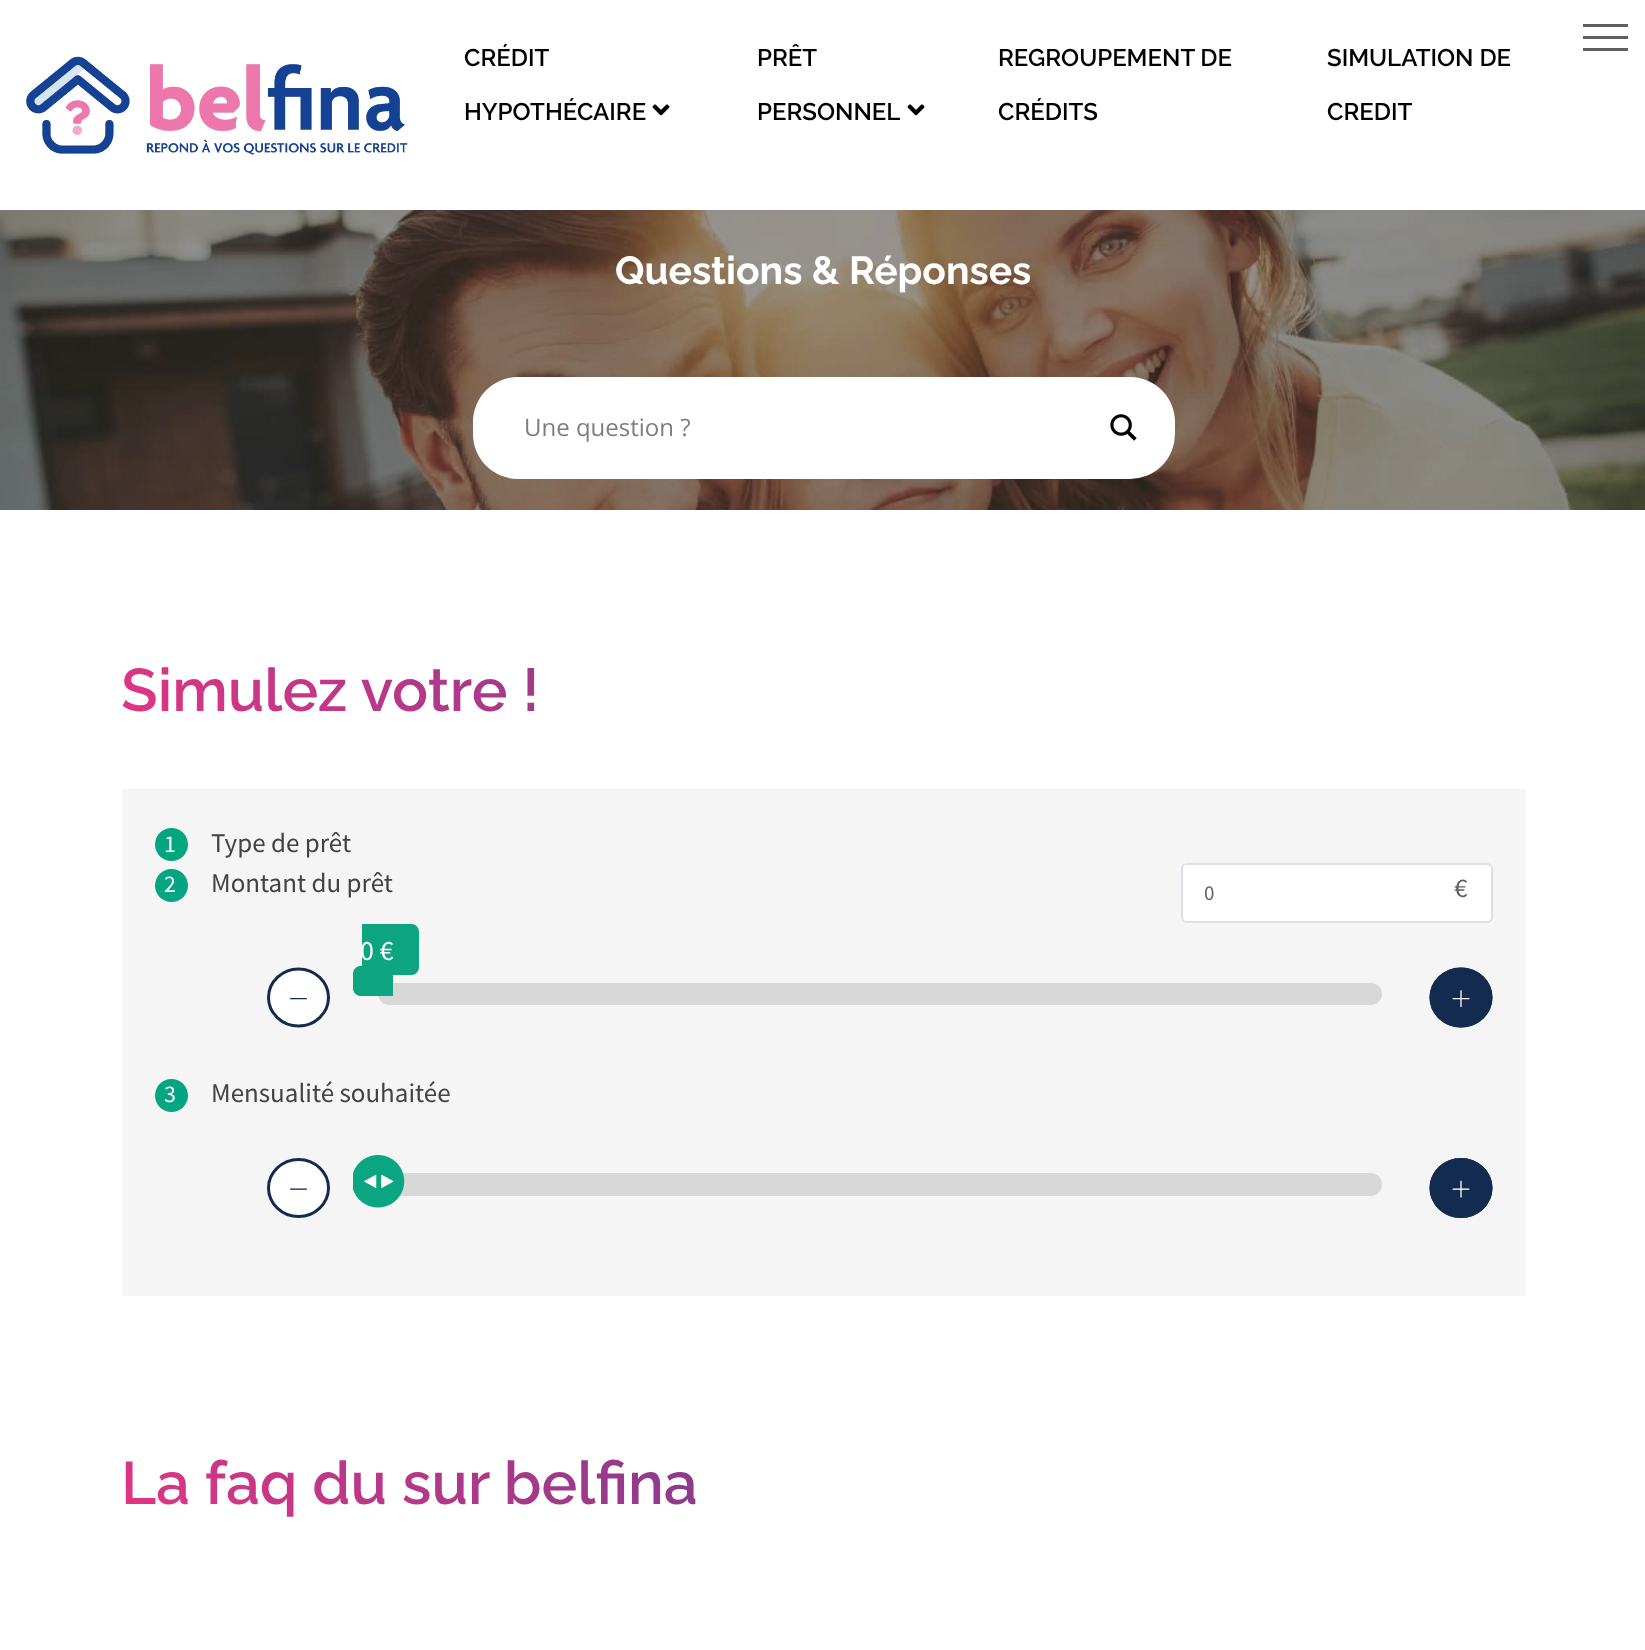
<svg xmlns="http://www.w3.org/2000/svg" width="1645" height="1650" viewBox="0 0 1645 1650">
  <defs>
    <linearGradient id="g1" gradientUnits="userSpaceOnUse" x1="444" y1="1070" x2="1202" y2="312"><stop offset="0" stop-color="#e33584"/><stop offset="1" stop-color="#164295"/></linearGradient>
    <clipPath id="clip1"><rect x="1205" y="863" width="264" height="60"/></clipPath>
    <linearGradient id="g2" gradientUnits="userSpaceOnUse" x1="444" y1="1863" x2="1202" y2="1105"><stop offset="0" stop-color="#e33584"/><stop offset="1" stop-color="#164295"/></linearGradient>
  </defs>
  <rect width="100%" height="100%" fill="#ffffff"/>
  <rect x="1583" y="36" width="45" height="3" fill="#606060"/>
  <rect x="1583" y="24" width="45" height="3" fill="#606060"/>
  <rect x="1583" y="48" width="45" height="3" fill="#606060"/>
  <image x="26" y="56" width="382" height="99" href="img1.png"/>
  <text x="464" y="66" font-family="Raleway" font-size="24" font-weight="600" fill="#000000">CRÉDIT</text>
  <text x="464" y="120" font-family="Raleway" font-size="24" font-weight="600" fill="#000000">HYPOTHÉCAIRE</text>
  <image x="652" y="104" width="18" height="12" href="img2.png"/>
  <text x="757" y="66" font-family="Raleway" font-size="24" font-weight="600" fill="#000000">PRÊT</text>
  <text x="757" y="120" font-family="Raleway" font-size="24" font-weight="600" fill="#000000">PERSONNEL</text>
  <image x="907" y="104" width="18" height="12" href="img2.png"/>
  <text x="998" y="66" font-family="Raleway" font-size="24" font-weight="600" fill="#000000">REGROUPEMENT DE</text>
  <text x="998" y="120" font-family="Raleway" font-size="24" font-weight="600" fill="#000000">CRÉDITS</text>
  <text x="1327" y="66" font-family="Raleway" font-size="24" font-weight="600" fill="#000000">SIMULATION DE</text>
  <text x="1327" y="120" font-family="Raleway" font-size="24" font-weight="600" fill="#000000">CREDIT</text>
  <rect x="0" y="210" width="1645" height="300" fill="#303030"/>
  <image x="0" y="210" width="1645" height="300" href="img3.png"/>
  <text x="615" y="284" font-family="Raleway" font-size="39" font-weight="bold" fill="#ffffff">Questions &amp; Réponses</text>
  <rect x="473" y="377" width="702" height="102" rx="45" fill="#ffffff"/>
  <text x="524" y="436" font-family="Open Sans" font-size="24" fill="#7d7d7d">Une question ?</text>
  <image x="1110" y="414" width="27" height="27" href="img4.png"/>
  <text x="121" y="711" font-family="Raleway" font-size="60" font-weight="600" fill="url(#g1)">Simulez votre !</text>
  <rect x="122" y="789" width="1404" height="507" fill="#f5f5f5"/>
  <circle cx="171.5" cy="844.5" r="16.5" fill="#04a581"/>
  <text x="164" y="852" font-family="Source Sans Pro" font-size="24" fill="#ffffff">1</text>
  <text x="211" y="852" font-family="Source Sans Pro" font-size="27" fill="#424242">Type de prêt</text>
  <circle cx="171.5" cy="885.5" r="16.5" fill="#04a581"/>
  <text x="164" y="892" font-family="Source Sans Pro" font-size="24" fill="#ffffff">2</text>
  <text x="211" y="892" font-family="Source Sans Pro" font-size="27" fill="#424242">Montant du prêt</text>
  <rect x="1182" y="864" width="310" height="58" rx="5" fill="#ffffff" stroke="#dcdfe6" stroke-width="2"/>
  <g clip-path="url(#clip1)">
    <text x="1204" y="900" font-family="Source Sans Pro" font-size="21" fill="#606266">0</text>
  </g>
  <text x="1454" y="897" font-family="Source Sans Pro" font-size="27" fill="#606266">€</text>
  <rect x="378" y="983" width="1004" height="22" rx="11" fill="#d8d8d8"/>
  <rect x="362" y="924" width="19" height="42" fill="#0ca580"/>
  <path d="M362 966H393V996H362C357.5 996 354 992.5 354 988V974C354 969.5 357.5 966 362 966Z" fill="#0ca580"/>
  <path d="M361 966H392V996H361C356.5 996 353 992.5 353 988.5V973.5C353 969.5 356.5 966 361 966ZM361 967.5H392V994.5H361C357.5 994.5 355 992 355 988.5V973.5C355 970 357.5 967.5 361 967.5Z" fill="#0ca580" fill-rule="evenodd"/>
  <path d="M381 924H411C415.5 924 419 927.5 419 932V967C419 971.5 415.5 975 411 975H381Z" fill="#0ca580"/>
  <path d="M380 924H410C414 924 418 927 418 932V968C418 972 414 975 410 975H380ZM380 926H410C414 926 416 928 416 932V968C416 971 414 974 410 974H380Z" fill="#0ca580" fill-rule="evenodd"/>
  <text x="360" y="960" font-family="Source Sans Pro" font-size="28" fill="#ffffff">0 €</text>
  <ellipse cx="298.5" cy="997.5" rx="31.5" ry="30" fill="#ffffff"/>
  <path d="M298.5 969C315 969 328.5 982 328.5 997.5C328.5 1013 315 1026 298.5 1026C282 1026 268.5 1013 268.5 997.5C268.5 982 282 969 298.5 969Z" fill="none" stroke="#122b4e" stroke-width="3"/>
  <image x="290" y="998" width="17" height="2" href="img5.png"/>
  <ellipse cx="1461" cy="997.5" rx="31.5" ry="30" fill="#122b4e"/>
  <path d="M1461 969C1477.5 969 1491 982 1491 997.5C1491 1013 1477.5 1026 1461 1026C1444.5 1026 1431 1013 1431 997.5C1431 982 1444.5 969 1461 969Z" fill="none" stroke="#122b4e" stroke-width="3"/>
  <image x="1452" y="990" width="18" height="18" href="img6.png"/>
  <circle cx="171.5" cy="1095.5" r="16.5" fill="#04a581"/>
  <text x="164" y="1102" font-family="Source Sans Pro" font-size="24" fill="#ffffff">3</text>
  <text x="211" y="1102" font-family="Source Sans Pro" font-size="27" fill="#424242">Mensualité souhaitée</text>
  <ellipse cx="298.5" cy="1188" rx="31.5" ry="30" fill="#ffffff"/>
  <path d="M298.5 1159.5C315 1159.5 328.5 1172.5 328.5 1188C328.5 1203.5 315 1216.5 298.5 1216.5C282 1216.5 268.5 1203.5 268.5 1188C268.5 1172.5 282 1159.5 298.5 1159.5Z" fill="none" stroke="#122b4e" stroke-width="3"/>
  <image x="290" y="1188" width="17" height="2" href="img7.png"/>
  <rect x="378" y="1173" width="1004" height="23" rx="11.5" fill="#d8d8d8"/>
  <image x="353" y="1155" width="52" height="53" href="img8.png"/>
  <ellipse cx="1461" cy="1188" rx="31.5" ry="30" fill="#122b4e"/>
  <path d="M1461 1159.5C1477.5 1159.5 1491 1172.5 1491 1188C1491 1203.5 1477.5 1216.5 1461 1216.5C1444.5 1216.5 1431 1203.5 1431 1188C1431 1172.5 1444.5 1159.5 1461 1159.5Z" fill="none" stroke="#122b4e" stroke-width="3"/>
  <image x="1452" y="1180" width="18" height="18" href="img9.png"/>
  <text x="121" y="1504" font-family="Raleway" font-size="60" font-weight="600" fill="url(#g2)">La faq du sur belfina</text>
</svg>
